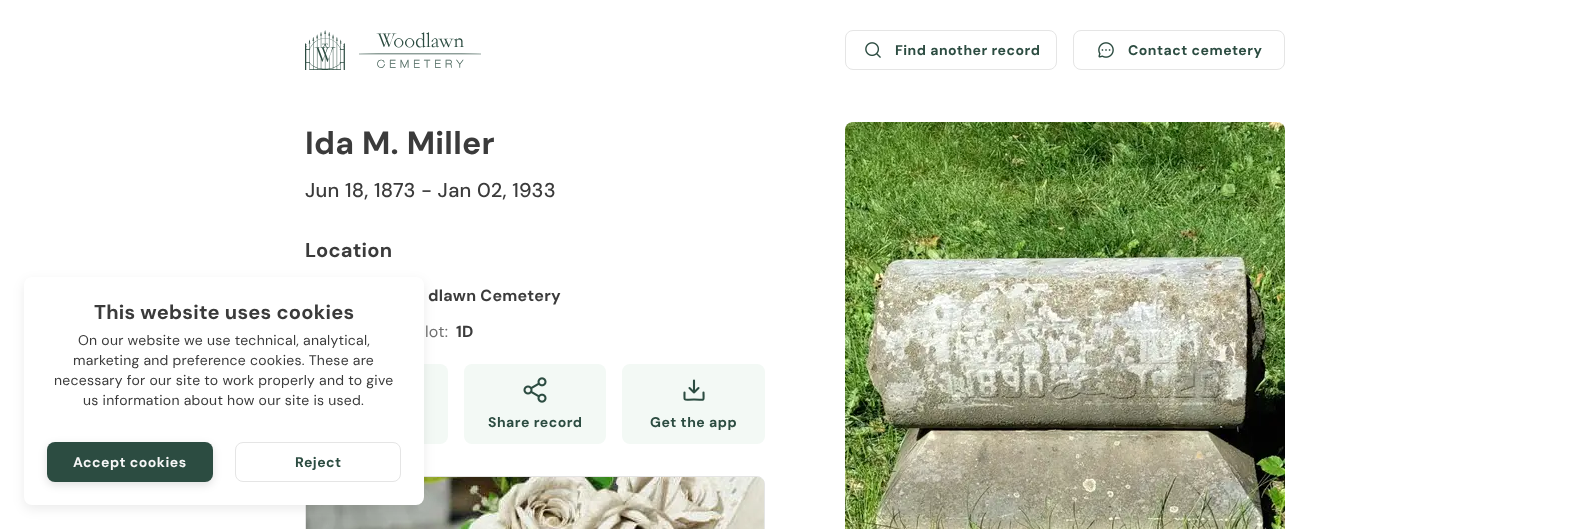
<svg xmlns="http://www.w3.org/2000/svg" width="1590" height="529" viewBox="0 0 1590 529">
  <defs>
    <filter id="blur1" x="-50%" y="-200%" width="200%" height="500%"><feGaussianBlur stdDeviation="6"/></filter>
    <filter id="blur2" x="-50%" y="-200%" width="200%" height="500%"><feGaussianBlur stdDeviation="4"/></filter>
  </defs>
  <rect width="100%" height="100%" fill="#ffffff"/>
  <rect x="305" y="364" width="143" height="80" rx="8" fill="#f3f9f5"/>
  <rect x="305.5" y="476.5" width="459" height="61" rx="7.5" fill="none" stroke="#e5e5e5"/>
  <image x="306" y="477" width="458" height="52" href="img5.png"/>
  <rect x="24" y="281" width="400" height="228" rx="8" fill="#000000" fill-opacity="0.08" filter="url(#blur1)"/>
  <rect x="24" y="277" width="400" height="228" rx="8" fill="#ffffff"/>
  <text x="94" y="319" font-family="DM Sans" font-size="20" font-weight="bold" letter-spacing="0.25" fill="#3b3b3b">This website uses cookies</text>
  <text x="78" y="345" font-family="DM Sans" font-size="14" letter-spacing="0.25" fill="#3b3b3b">On our website we use technical, analytical,</text>
  <text x="73" y="365" font-family="DM Sans" font-size="14" letter-spacing="0.25" fill="#3b3b3b">marketing and preference cookies. These are</text>
  <text x="54" y="385" font-family="DM Sans" font-size="14" letter-spacing="0.25" fill="#3b3b3b">necessary for our site to work properly and to give</text>
  <text x="83" y="405" font-family="DM Sans" font-size="14" letter-spacing="0.25" fill="#3b3b3b">us information about how our site is used.</text>
  <rect x="47" y="445" width="166" height="40" rx="8" fill="#000000" fill-opacity="0.12" filter="url(#blur2)"/>
  <rect x="47" y="442" width="166" height="40" rx="8" fill="#2c4c41"/>
  <text x="73" y="467" font-family="DM Sans" font-size="14" font-weight="bold" letter-spacing="0.5" fill="#f7f7f7">Accept cookies</text>
  <rect x="235.5" y="442.5" width="165" height="39" rx="7.5" fill="none" stroke="#e5e5e5"/>
  <text x="295" y="467" font-family="DM Sans" font-size="14" font-weight="bold" letter-spacing="0.5" fill="#2c4c41">Reject</text>
  <image x="305" y="30" width="176" height="40" href="img1.png"/>
  <rect x="845.5" y="30.5" width="211" height="39" rx="7.5" fill="none" stroke="#e5e5e5"/>
  <image x="865" y="42" width="16" height="16" href="img2.png"/>
  <text x="895" y="55" font-family="DM Sans" font-size="14" font-weight="bold" letter-spacing="0.5" fill="#2c4c41">Find another record</text>
  <rect x="1073.5" y="30.5" width="211" height="39" rx="7.5" fill="none" stroke="#e5e5e5"/>
  <image x="1098" y="42" width="16" height="16" href="img3.png"/>
  <text x="1128" y="55" font-family="DM Sans" font-size="14" font-weight="bold" letter-spacing="0.5" fill="#2c4c41">Contact cemetery</text>
  <text x="305" y="154" font-family="DM Sans" font-size="32" font-weight="bold" letter-spacing="0.25" fill="#3b3b3b">Ida M. Miller</text>
  <text x="305" y="197" font-family="DM Sans" font-size="20" font-weight="500" letter-spacing="0.25" fill="#3b3b3b">Jun 18, 1873 - Jan 02, 1933</text>
  <text x="305" y="257" font-family="DM Sans" font-size="20" font-weight="bold" letter-spacing="0.25" fill="#3b3b3b">Location</text>
  <text x="428" y="301" font-family="DM Sans" font-size="16" font-weight="bold" letter-spacing="0.25" fill="#3b3b3b">dlawn Cemetery</text>
  <text x="425" y="337" font-family="DM Sans" font-size="16" letter-spacing="0.25" fill="#707070">lot:</text>
  <text x="456" y="337" font-family="DM Sans" font-size="16" font-weight="bold" letter-spacing="0.25" fill="#3b3b3b">1D</text>
  <rect x="464" y="364" width="142" height="80" rx="8" fill="#f3f9f5"/>
  <image x="523" y="377" width="24" height="26" href="img4.png"/>
  <text x="488" y="427" font-family="DM Sans" font-size="14" font-weight="bold" letter-spacing="0.5" fill="#2c4c41">Share record</text>
  <rect x="622" y="364" width="143" height="80" rx="8" fill="#f3f9f5"/>
  <path d="M689.5 388L694 392.5L698.5 388M694 380.5V392.5M703.5 392.5C703.5 402 705.5 399.5 694 399.5C683 399.5 684.5 402 684.5 392.5" fill="none" stroke="#2c4c41" stroke-width="2.1" stroke-linecap="round" stroke-linejoin="round"/>
  <text x="650" y="427" font-family="DM Sans" font-size="14" font-weight="bold" letter-spacing="0.5" fill="#2c4c41">Get the app</text>
  <image x="845" y="122" width="440" height="407" href="img6.png"/>
</svg>
